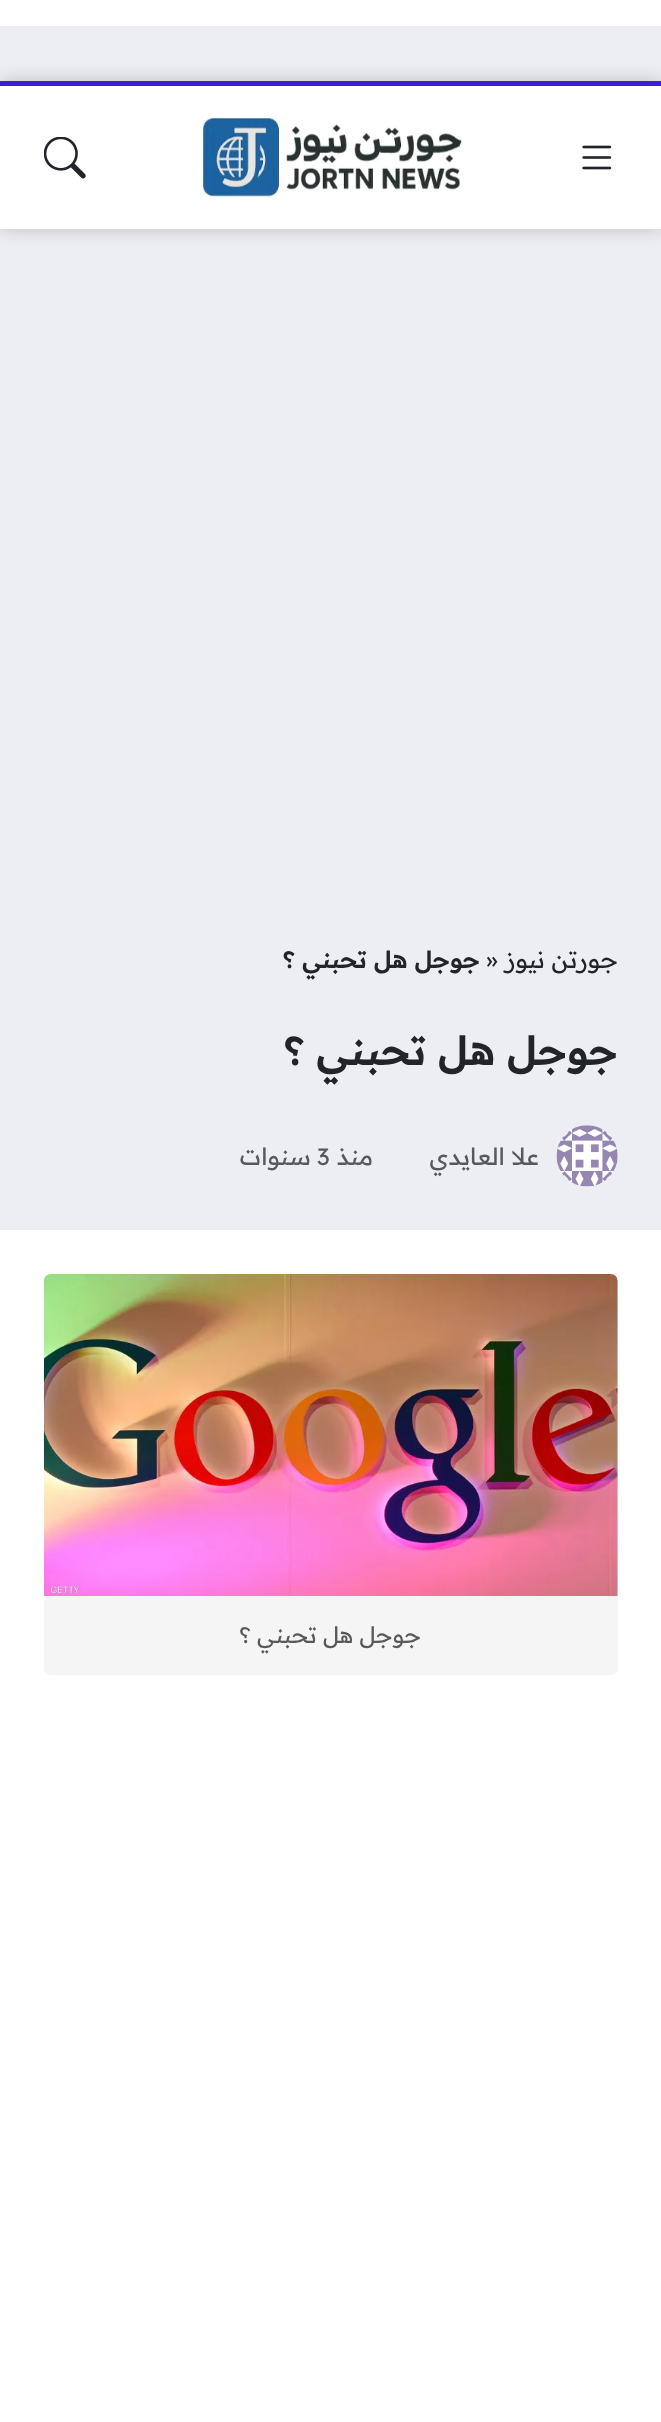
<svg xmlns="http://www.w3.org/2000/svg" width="661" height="2422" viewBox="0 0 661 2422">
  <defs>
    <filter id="blur1" x="-50%" y="-200%" width="200%" height="500%"><feGaussianBlur stdDeviation="9"/></filter>
  </defs>
  <rect width="100%" height="100%" fill="#edeef3"/>
  <rect x="0" y="0" width="661" height="26" fill="#ffffff"/>
  <rect x="0" y="81" width="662" height="148" fill="#000000" fill-opacity="0.2" filter="url(#blur1)"/>
  <rect x="0" y="81" width="661" height="5" fill="#3b1de2"/>
  <rect x="0" y="86" width="661" height="143" fill="#ffffff"/>
  <image x="582" y="145" width="30" height="25" href="img1.png"/>
  <image x="202" y="115" width="260" height="84" href="img2.png"/>
  <image x="44" y="137" width="42" height="42" href="img3.png"/>
  <text x="618" y="968" font-family="Readex Pro" font-size="23.75" direction="rtl" fill="#212529">جورتن نيوز</text>
  <text x="486" y="968" font-family="Readex Pro" font-size="23.75" fill="#212529">»</text>
  <text x="480" y="968" font-family="Readex Pro" font-size="23.75" font-weight="600" direction="rtl" fill="#212529">جوجل هل تحبني ؟</text>
  <text x="618" y="1065" font-family="Readex Pro" font-size="40.25" font-weight="600" direction="rtl" fill="#212529">جوجل هل تحبني ؟</text>
  <image x="556" y="1125" width="62" height="62" href="img4.png"/>
  <text x="539" y="1165" font-family="Readex Pro" font-size="23.75" direction="rtl" fill="#595959">علا العايدي</text>
  <text x="373" y="1165" font-family="Readex Pro" font-size="23.75" direction="rtl" fill="#595959">منذ</text>
  <text x="317" y="1165" font-family="Readex Pro" font-size="23.75" fill="#595959">3</text>
  <text x="311" y="1165" font-family="Readex Pro" font-size="23.75" direction="rtl" fill="#595959">سنوات</text>
  <rect x="0" y="1230" width="661" height="1192" fill="#ffffff"/>
  <image x="43" y="1274" width="575" height="322" href="img5.png"/>
  <path d="M44 1596H618V1668C618 1672 615 1675 611 1675H51C47 1675 44 1672 44 1668Z" fill="#f5f5f5"/>
  <text x="421" y="1643" font-family="Readex Pro" font-size="22.5" direction="rtl" fill="#595959">جوجل هل تحبني ؟</text>
</svg>
